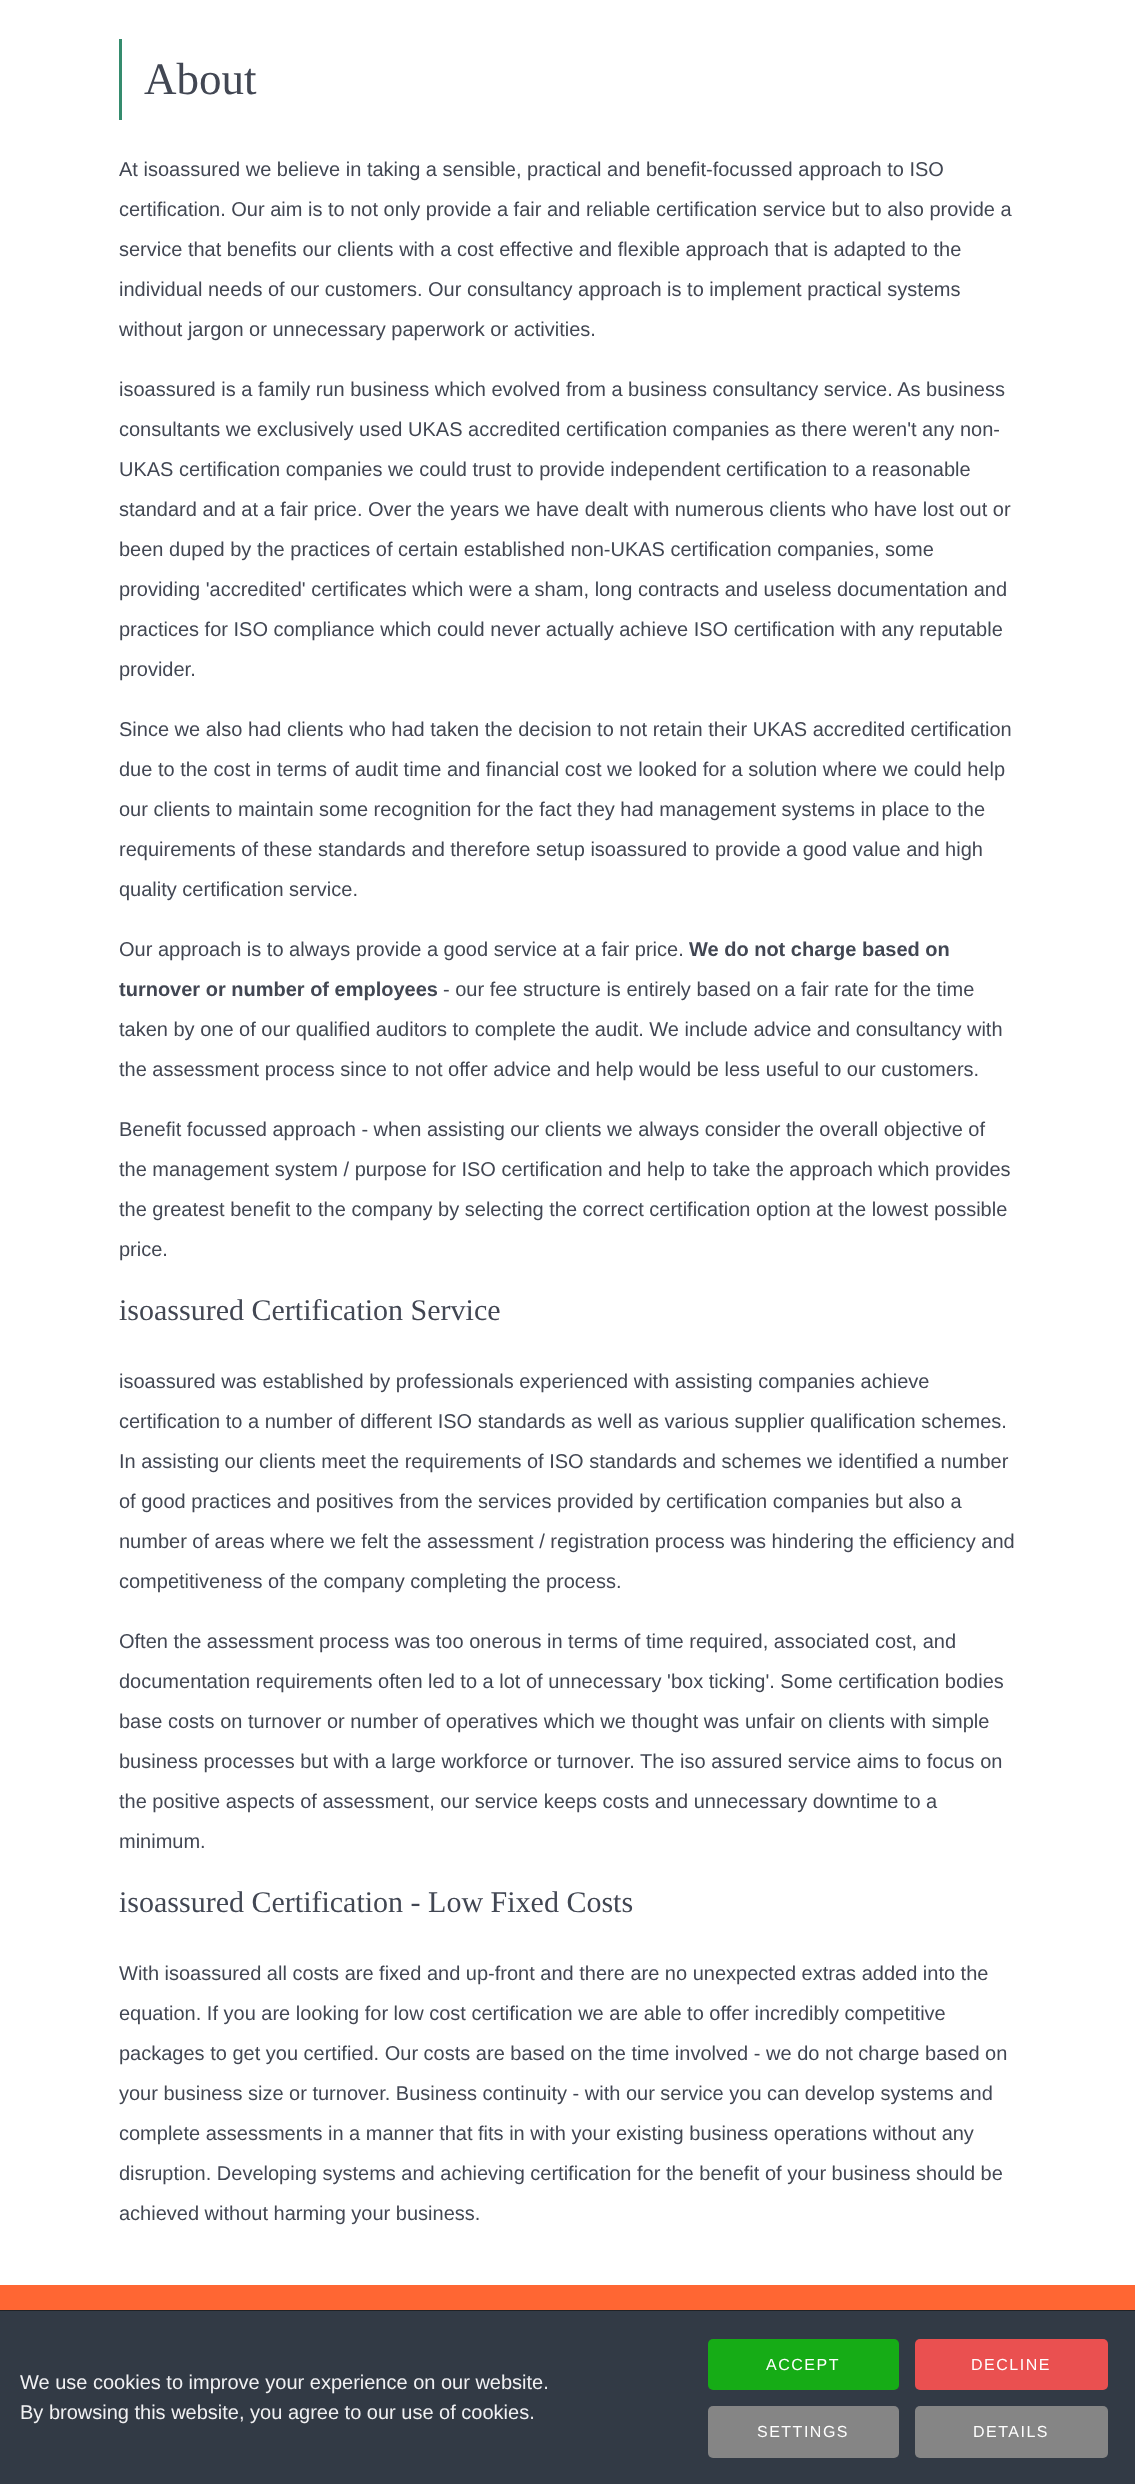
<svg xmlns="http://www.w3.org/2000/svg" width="1135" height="2484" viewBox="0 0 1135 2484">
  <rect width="100%" height="100%" fill="#ffffff"/>
  <rect x="119" y="39" width="3" height="81" fill="#358c6e"/>
  <text x="144" y="94" font-family="Liberation Serif" font-size="45" fill="#424753">About</text>
  <text x="119" y="176" font-family="Liberation Sans" font-size="20" fill="#424753">At isoassured we believe in taking a sensible, practical and benefit-focussed approach to ISO</text>
  <text x="119" y="216" font-family="Liberation Sans" font-size="20" fill="#424753">certification. Our aim is to not only provide a fair and reliable certification service but to also provide a</text>
  <text x="119" y="256" font-family="Liberation Sans" font-size="20" fill="#424753">service that benefits our clients with a cost effective and flexible approach that is adapted to the</text>
  <text x="119" y="296" font-family="Liberation Sans" font-size="20" fill="#424753">individual needs of our customers. Our consultancy approach is to implement practical systems</text>
  <text x="119" y="336" font-family="Liberation Sans" font-size="20" fill="#424753">without jargon or unnecessary paperwork or activities.</text>
  <text x="119" y="396" font-family="Liberation Sans" font-size="20" fill="#424753">isoassured is a family run business which evolved from a business consultancy service. As business</text>
  <text x="119" y="436" font-family="Liberation Sans" font-size="20" fill="#424753">consultants we exclusively used UKAS accredited certification companies as there weren't any non-</text>
  <text x="119" y="476" font-family="Liberation Sans" font-size="20" fill="#424753">UKAS certification companies we could trust to provide independent certification to a reasonable</text>
  <text x="119" y="516" font-family="Liberation Sans" font-size="20" fill="#424753">standard and at a fair price. Over the years we have dealt with numerous clients who have lost out or</text>
  <text x="119" y="556" font-family="Liberation Sans" font-size="20" fill="#424753">been duped by the practices of certain established non-UKAS certification companies, some</text>
  <text x="119" y="596" font-family="Liberation Sans" font-size="20" fill="#424753">providing 'accredited' certificates which were a sham, long contracts and useless documentation and</text>
  <text x="119" y="636" font-family="Liberation Sans" font-size="20" fill="#424753">practices for ISO compliance which could never actually achieve ISO certification with any reputable</text>
  <text x="119" y="676" font-family="Liberation Sans" font-size="20" fill="#424753">provider.</text>
  <text x="119" y="736" font-family="Liberation Sans" font-size="20" fill="#424753">Since we also had clients who had taken the decision to not retain their UKAS accredited certification</text>
  <text x="119" y="776" font-family="Liberation Sans" font-size="20" fill="#424753">due to the cost in terms of audit time and financial cost we looked for a solution where we could help</text>
  <text x="119" y="816" font-family="Liberation Sans" font-size="20" fill="#424753">our clients to maintain some recognition for the fact they had management systems in place to the</text>
  <text x="119" y="856" font-family="Liberation Sans" font-size="20" fill="#424753">requirements of these standards and therefore setup isoassured to provide a good value and high</text>
  <text x="119" y="896" font-family="Liberation Sans" font-size="20" fill="#424753">quality certification service.</text>
  <text x="119" y="956" font-family="Liberation Sans" font-size="20" fill="#424753">Our approach is to always provide a good service at a fair price.</text>
  <text x="689" y="956" font-family="Liberation Sans" font-size="20" font-weight="bold" fill="#424753">We do not charge based on</text>
  <text x="119" y="996" font-family="Liberation Sans" font-size="20" font-weight="bold" fill="#424753">turnover or number of employees</text>
  <text x="443" y="996" font-family="Liberation Sans" font-size="20" fill="#424753">- our fee structure is entirely based on a fair rate for the time</text>
  <text x="119" y="1036" font-family="Liberation Sans" font-size="20" fill="#424753">taken by one of our qualified auditors to complete the audit. We include advice and consultancy with</text>
  <text x="119" y="1076" font-family="Liberation Sans" font-size="20" fill="#424753">the assessment process since to not offer advice and help would be less useful to our customers.</text>
  <text x="119" y="1136" font-family="Liberation Sans" font-size="20" fill="#424753">Benefit focussed approach - when assisting our clients we always consider the overall objective of</text>
  <text x="119" y="1176" font-family="Liberation Sans" font-size="20" fill="#424753">the management system / purpose for ISO certification and help to take the approach which provides</text>
  <text x="119" y="1216" font-family="Liberation Sans" font-size="20" fill="#424753">the greatest benefit to the company by selecting the correct certification option at the lowest possible</text>
  <text x="119" y="1256" font-family="Liberation Sans" font-size="20" fill="#424753">price.</text>
  <text x="119" y="1320" font-family="Liberation Serif" font-size="30" fill="#424753">isoassured Certification Service</text>
  <text x="119" y="1388" font-family="Liberation Sans" font-size="20" fill="#424753">isoassured was established by professionals experienced with assisting companies achieve</text>
  <text x="119" y="1428" font-family="Liberation Sans" font-size="20" fill="#424753">certification to a number of different ISO standards as well as various supplier qualification schemes.</text>
  <text x="119" y="1468" font-family="Liberation Sans" font-size="20" fill="#424753">In assisting our clients meet the requirements of ISO standards and schemes we identified a number</text>
  <text x="119" y="1508" font-family="Liberation Sans" font-size="20" fill="#424753">of good practices and positives from the services provided by certification companies but also a</text>
  <text x="119" y="1548" font-family="Liberation Sans" font-size="20" fill="#424753">number of areas where we felt the assessment / registration process was hindering the efficiency and</text>
  <text x="119" y="1588" font-family="Liberation Sans" font-size="20" fill="#424753">competitiveness of the company completing the process.</text>
  <text x="119" y="1648" font-family="Liberation Sans" font-size="20" fill="#424753">Often the assessment process was too onerous in terms of time required, associated cost, and</text>
  <text x="119" y="1688" font-family="Liberation Sans" font-size="20" fill="#424753">documentation requirements often led to a lot of unnecessary 'box ticking'. Some certification bodies</text>
  <text x="119" y="1728" font-family="Liberation Sans" font-size="20" fill="#424753">base costs on turnover or number of operatives which we thought was unfair on clients with simple</text>
  <text x="119" y="1768" font-family="Liberation Sans" font-size="20" fill="#424753">business processes but with a large workforce or turnover. The iso assured service aims to focus on</text>
  <text x="119" y="1808" font-family="Liberation Sans" font-size="20" fill="#424753">the positive aspects of assessment, our service keeps costs and unnecessary downtime to a</text>
  <text x="119" y="1848" font-family="Liberation Sans" font-size="20" fill="#424753">minimum.</text>
  <text x="119" y="1912" font-family="Liberation Serif" font-size="30" fill="#424753">isoassured Certification - Low Fixed Costs</text>
  <text x="119" y="1980" font-family="Liberation Sans" font-size="20" fill="#424753">With isoassured all costs are fixed and up-front and there are no unexpected extras added into the</text>
  <text x="119" y="2020" font-family="Liberation Sans" font-size="20" fill="#424753">equation. If you are looking for low cost certification we are able to offer incredibly competitive</text>
  <text x="119" y="2060" font-family="Liberation Sans" font-size="20" fill="#424753">packages to get you certified. Our costs are based on the time involved - we do not charge based on</text>
  <text x="119" y="2100" font-family="Liberation Sans" font-size="20" fill="#424753">your business size or turnover. Business continuity - with our service you can develop systems and</text>
  <text x="119" y="2140" font-family="Liberation Sans" font-size="20" fill="#424753">complete assessments in a manner that fits in with your existing business operations without any</text>
  <text x="119" y="2180" font-family="Liberation Sans" font-size="20" fill="#424753">disruption. Developing systems and achieving certification for the benefit of your business should be</text>
  <text x="119" y="2220" font-family="Liberation Sans" font-size="20" fill="#424753">achieved without harming your business.</text>
  <rect x="0" y="2285" width="1135" height="25" fill="#ff6633"/>
  <rect x="0" y="2311" width="1135" height="173" fill="#323a45"/>
  <rect x="0" y="2310" width="1135" height="1" fill="#202226"/>
  <text x="20" y="2389" font-family="Liberation Sans" font-size="20" fill="#f1f1f3">We use cookies to improve your experience on our website.</text>
  <text x="20" y="2419" font-family="Liberation Sans" font-size="20" fill="#f1f1f3">By browsing this website, you agree to our use of cookies.</text>
  <rect x="708" y="2339" width="191" height="51" rx="5" fill="#16ac16"/>
  <text x="766" y="2370" font-family="Liberation Sans" font-size="16" letter-spacing="1.5" fill="#ffffff">ACCEPT</text>
  <rect x="915" y="2339" width="193" height="51" rx="5" fill="#ea5050"/>
  <text x="971" y="2370" font-family="Liberation Sans" font-size="16" letter-spacing="1.5" fill="#ffffff">DECLINE</text>
  <rect x="708" y="2406" width="191" height="52" rx="5" fill="#858585"/>
  <text x="757" y="2437" font-family="Liberation Sans" font-size="16" letter-spacing="1.5" fill="#ffffff">SETTINGS</text>
  <rect x="915" y="2406" width="193" height="52" rx="5" fill="#858585"/>
  <text x="973" y="2437" font-family="Liberation Sans" font-size="16" letter-spacing="1.5" fill="#ffffff">DETAILS</text>
</svg>
